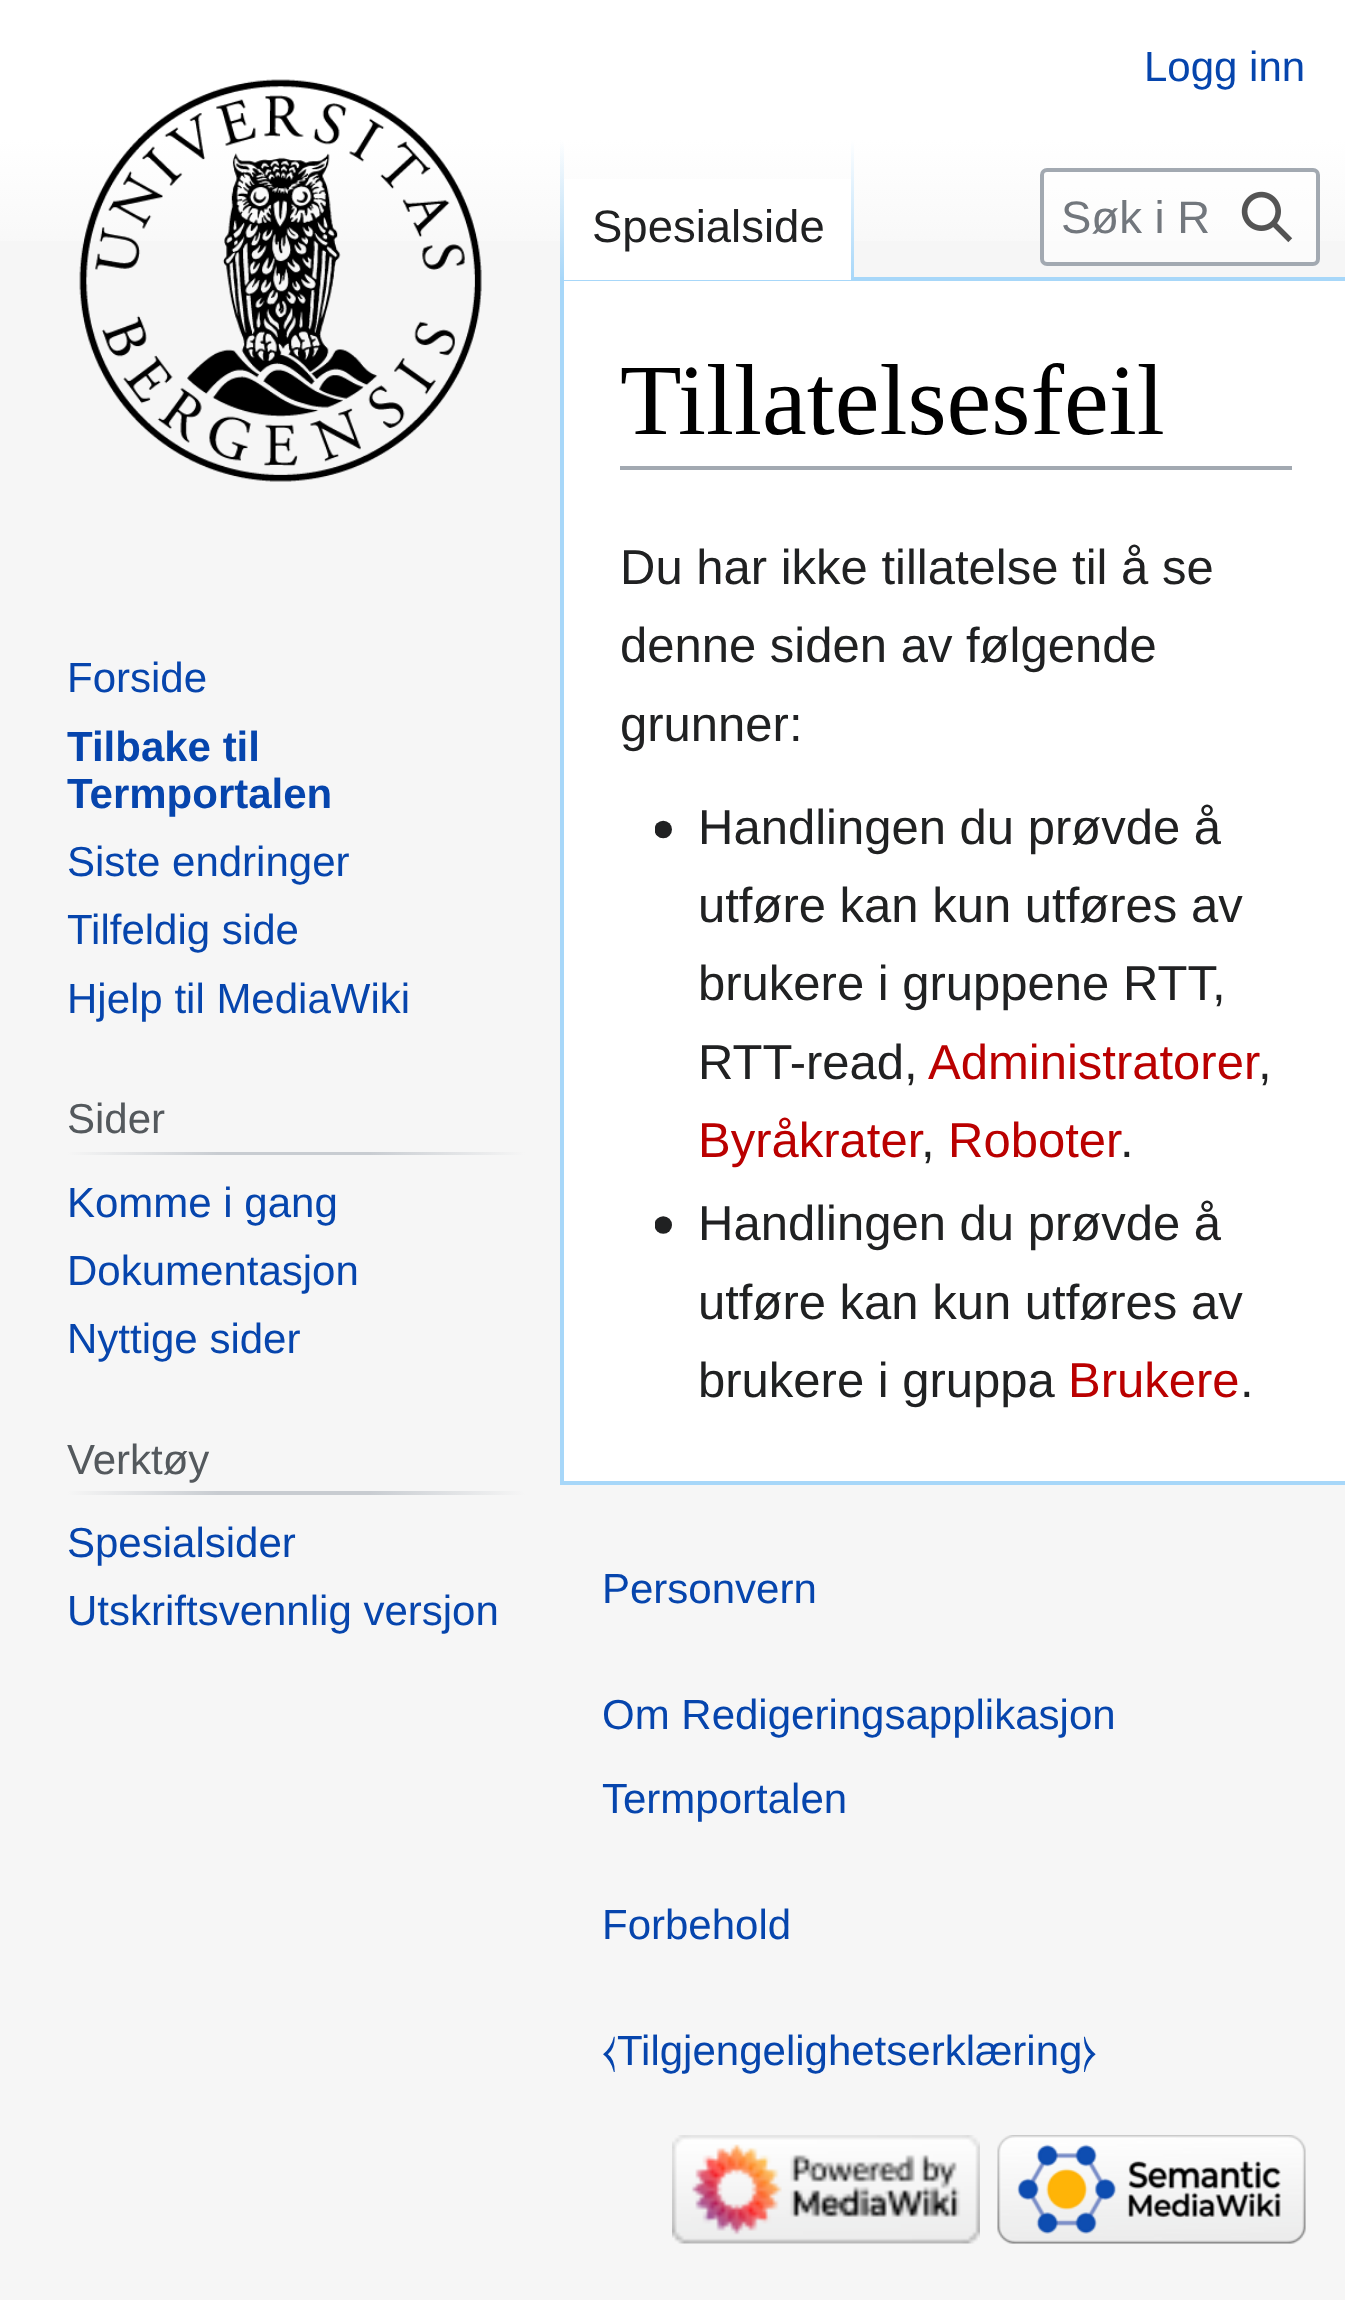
<svg xmlns="http://www.w3.org/2000/svg" width="1345" height="2300" viewBox="0 0 1345 2300">
  <defs>
    <linearGradient id="g1" gradientUnits="userSpaceOnUse" x1="674" y1="0" x2="674" y2="280"><stop offset="0.5" stop-color="#ffffff"/><stop offset="1" stop-color="#f6f6f6"/></linearGradient>
    <linearGradient id="g2" gradientUnits="userSpaceOnUse" x1="562" y1="140" x2="562" y2="280"><stop offset="0" stop-color="#a7d7f9" stop-opacity="0"/><stop offset="1" stop-color="#a7d7f9"/></linearGradient>
    <linearGradient id="g3" gradientUnits="userSpaceOnUse" x1="852" y1="140" x2="852" y2="280"><stop offset="0" stop-color="#ffffff"/><stop offset="1" stop-color="#a7d7f9"/></linearGradient>
    <linearGradient id="g4" gradientUnits="userSpaceOnUse" x1="67" y1="1153" x2="525" y2="1153"><stop offset="0" stop-color="#f6f6f6"/><stop offset="0.33" stop-color="#c8ccd1"/><stop offset="0.66" stop-color="#c8ccd1"/><stop offset="1" stop-color="#f6f6f6"/></linearGradient>
    <linearGradient id="g5" gradientUnits="userSpaceOnUse" x1="67" y1="1493" x2="525" y2="1493"><stop offset="0" stop-color="#f6f6f6"/><stop offset="0.33" stop-color="#c8ccd1"/><stop offset="0.66" stop-color="#c8ccd1"/><stop offset="1" stop-color="#f6f6f6"/></linearGradient>
  </defs>
  <rect width="100%" height="100%" fill="#f6f6f6"/>
  <rect x="0" y="0" width="1345" height="241" fill="url(#g1)"/>
  <text x="1144" y="81" font-family="Liberation Sans" font-size="42" fill="#0645ad">Logg inn</text>
  <rect x="560" y="277" width="785" height="4" fill="#a7d7f9"/>
  <rect x="560" y="1481" width="785" height="4" fill="#a7d7f9"/>
  <rect x="560" y="277" width="4" height="1207" fill="#a7d7f9"/>
  <rect x="560" y="140" width="4" height="140" fill="url(#g2)"/>
  <rect x="564" y="179" width="287" height="101" fill="#ffffff"/>
  <rect x="851" y="140" width="3" height="140" fill="url(#g3)"/>
  <text x="592" y="242" font-family="Liberation Sans" font-size="45.5" fill="#202122">Spesialside</text>
  <rect x="1042" y="170" width="276" height="94" rx="5" fill="#ffffff" fill-opacity="0.5" stroke="#a2a9b1" stroke-width="4"/>
  <text x="1061" y="233" font-family="Liberation Sans" font-size="45.5" fill="#72777d">Søk i R</text>
  <image x="1241" y="191" width="52" height="52" href="img1.png"/>
  <image x="79" y="79" width="403" height="403" href="img2.png"/>
  <text x="67" y="692" font-family="Liberation Sans" font-size="42" fill="#0645ad">Forside</text>
  <text x="67" y="761" font-family="Liberation Sans" font-size="42" font-weight="bold" fill="#0645ad">Tilbake til</text>
  <text x="67" y="808" font-family="Liberation Sans" font-size="42" font-weight="bold" fill="#0645ad">Termportalen</text>
  <text x="67" y="876" font-family="Liberation Sans" font-size="42" fill="#0645ad">Siste endringer</text>
  <text x="67" y="944" font-family="Liberation Sans" font-size="42" fill="#0645ad">Tilfeldig side</text>
  <text x="67" y="1013" font-family="Liberation Sans" font-size="42" fill="#0645ad">Hjelp til MediaWiki</text>
  <rect x="67" y="1152" width="458" height="3" fill="url(#g4)"/>
  <text x="67" y="1133" font-family="Liberation Sans" font-size="42" fill="#54595d">Sider</text>
  <text x="67" y="1217" font-family="Liberation Sans" font-size="42" fill="#0645ad">Komme i gang</text>
  <text x="67" y="1285" font-family="Liberation Sans" font-size="42" fill="#0645ad">Dokumentasjon</text>
  <text x="67" y="1353" font-family="Liberation Sans" font-size="42" fill="#0645ad">Nyttige sider</text>
  <rect x="67" y="1491" width="458" height="4" fill="url(#g5)"/>
  <text x="67" y="1474" font-family="Liberation Sans" font-size="42" fill="#54595d">Verktøy</text>
  <text x="67" y="1557" font-family="Liberation Sans" font-size="42" fill="#0645ad">Spesialsider</text>
  <text x="67" y="1625" font-family="Liberation Sans" font-size="42" fill="#0645ad">Utskriftsvennlig versjon</text>
  <rect x="564" y="281" width="781" height="1200" fill="#ffffff"/>
  <rect x="620" y="466" width="672" height="4" fill="#a2a9b1"/>
  <text x="620" y="434" font-family="Liberation Serif" font-size="100.75" fill="#000000">Tillatelsesfeil</text>
  <text x="620" y="584" font-family="Liberation Sans" font-size="49" fill="#202122">Du har ikke tillatelse til å se</text>
  <text x="620" y="662" font-family="Liberation Sans" font-size="49" fill="#202122">denne siden av følgende</text>
  <text x="620" y="741" font-family="Liberation Sans" font-size="49" fill="#202122">grunner:</text>
  <image x="655" y="820" width="17" height="19" href="img3.png"/>
  <text x="698" y="844" font-family="Liberation Sans" font-size="49" fill="#202122">Handlingen du prøvde å</text>
  <text x="698" y="922" font-family="Liberation Sans" font-size="49" fill="#202122">utføre kan kun utføres av</text>
  <text x="698" y="1000" font-family="Liberation Sans" font-size="49" fill="#202122">brukere i gruppene RTT,</text>
  <text x="698" y="1079" font-family="Liberation Sans" font-size="49" fill="#202122">RTT-read,</text>
  <text x="928" y="1079" font-family="Liberation Sans" font-size="49" fill="#ba0000">Administratorer</text>
  <text x="1258" y="1079" font-family="Liberation Sans" font-size="49" fill="#202122">,</text>
  <text x="698" y="1157" font-family="Liberation Sans" font-size="49" fill="#ba0000">Byråkrater</text>
  <text x="921" y="1157" font-family="Liberation Sans" font-size="49" fill="#202122">,</text>
  <text x="948" y="1157" font-family="Liberation Sans" font-size="49" fill="#ba0000">Roboter</text>
  <text x="1120" y="1157" font-family="Liberation Sans" font-size="49" fill="#202122">.</text>
  <image x="655" y="1216" width="17" height="18" href="img4.png"/>
  <text x="698" y="1240" font-family="Liberation Sans" font-size="49" fill="#202122">Handlingen du prøvde å</text>
  <text x="698" y="1319" font-family="Liberation Sans" font-size="49" fill="#202122">utføre kan kun utføres av</text>
  <text x="698" y="1397" font-family="Liberation Sans" font-size="49" fill="#202122">brukere i gruppa</text>
  <text x="1068" y="1397" font-family="Liberation Sans" font-size="49" fill="#ba0000">Brukere</text>
  <text x="1240" y="1397" font-family="Liberation Sans" font-size="49" fill="#202122">.</text>
  <text x="602" y="1603" font-family="Liberation Sans" font-size="42" fill="#0645ad">Personvern</text>
  <text x="602" y="1729" font-family="Liberation Sans" font-size="42" fill="#0645ad">Om Redigeringsapplikasjon</text>
  <text x="602" y="1813" font-family="Liberation Sans" font-size="42" fill="#0645ad">Termportalen</text>
  <text x="602" y="1939" font-family="Liberation Sans" font-size="42" fill="#0645ad">Forbehold</text>
  <text x="602" y="2065" font-family="FreeSerif" font-size="42" fill="#0645ad">⧼</text>
  <text x="617" y="2065" font-family="Liberation Sans" font-size="42" fill="#0645ad">Tilgjengelighetserklæring</text>
  <text x="1082" y="2065" font-family="FreeSerif" font-size="42" fill="#0645ad">⧽</text>
  <image x="672" y="2135" width="308" height="109" href="img5.png"/>
  <image x="997" y="2135" width="309" height="109" href="img6.png"/>
</svg>
